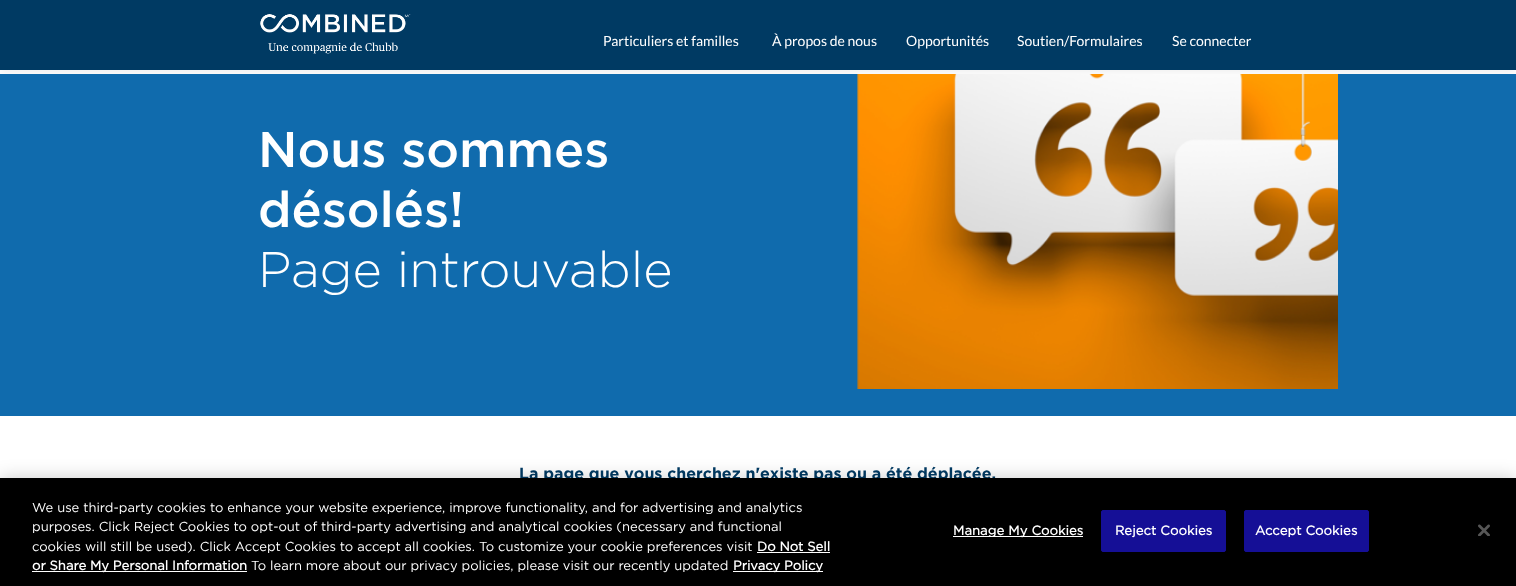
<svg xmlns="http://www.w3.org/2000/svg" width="1516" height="586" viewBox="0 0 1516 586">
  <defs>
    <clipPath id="clip1"><rect x="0" y="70" width="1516" height="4"/></clipPath>
    <filter id="blur1" x="-50%" y="-200%" width="200%" height="500%"><feGaussianBlur stdDeviation="4"/></filter>
    <filter id="blur2" x="-50%" y="-200%" width="200%" height="500%"><feGaussianBlur stdDeviation="9"/></filter>
  </defs>
  <rect width="100%" height="100%" fill="#ffffff"/>
  <rect x="0" y="0" width="1516" height="70" fill="#003a63"/>
  <rect x="0" y="74" width="1516" height="342" fill="#106bad"/>
  <image x="857" y="74" width="481" height="315" href="img2.png"/>
  <g clip-path="url(#clip1)">
    <rect x="0" y="2" width="1516" height="70" fill="#000000" fill-opacity="0.07" filter="url(#blur1)"/>
  </g>
  <image x="260" y="14" width="151" height="40" href="img1.png"/>
  <text x="603" y="46" font-family="Lato" font-size="14" fill="#ffffff">Particuliers et familles</text>
  <text x="772" y="46" font-family="Lato" font-size="14" fill="#ffffff">À propos de nous</text>
  <text x="906" y="46" font-family="Lato" font-size="14" fill="#ffffff">Opportunités</text>
  <text x="1017" y="46" font-family="Lato" font-size="14" fill="#ffffff">Soutien/Formulaires</text>
  <text x="1172" y="46" font-family="Lato" font-size="14" fill="#ffffff">Se connecter</text>
  <text x="258" y="167" font-family="Gotham" font-size="50" font-weight="500" fill="#ffffff">Nous sommes</text>
  <text x="258" y="227" font-family="Gotham" font-size="50" font-weight="500" fill="#ffffff">désolés!</text>
  <text x="258" y="287" font-family="Gotham" font-size="50" font-weight="300" fill="#ffffff">Page introuvable</text>
  <text x="519" y="479" font-family="Gotham" font-size="16" font-weight="bold" fill="#003a63">La page que vous cherchez n'existe pas ou a été déplacée.</text>
  <rect x="0" y="478" width="1516" height="108" fill="#000000" fill-opacity="0.2" filter="url(#blur2)"/>
  <rect x="0" y="478" width="1516" height="108" fill="#000000"/>
  <text x="32" y="512" font-family="Gotham" font-size="13" fill="#ffffff">We use third-party cookies to enhance your website experience, improve functionality, and for advertising and analytics</text>
  <text x="32" y="531" font-family="Gotham" font-size="13" fill="#ffffff">purposes. Click Reject Cookies to opt-out of third-party advertising and analytical cookies (necessary and functional</text>
  <text x="32" y="551" font-family="Gotham" font-size="13" fill="#ffffff">cookies will still be used). Click Accept Cookies to accept all cookies. To customize your cookie preferences visit</text>
  <text x="757" y="551" font-family="'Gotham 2'" font-size="13" font-weight="bold" fill="#ffffff">Do Not Sell</text>
  <rect x="757" y="552" width="73" height="1" fill="#ffffff"/>
  <rect x="32" y="571" width="215" height="1" fill="#ffffff"/>
  <text x="32" y="570" font-family="'Gotham 2'" font-size="13" font-weight="bold" fill="#ffffff">or Share My Personal Information</text>
  <text x="251" y="570" font-family="Gotham" font-size="13" fill="#ffffff">To learn more about our privacy policies, please visit our recently updated</text>
  <rect x="733" y="571" width="90" height="1" fill="#ffffff"/>
  <text x="733" y="570" font-family="'Gotham 2'" font-size="13" font-weight="bold" fill="#ffffff">Privacy Policy</text>
  <rect x="953" y="536" width="130" height="1" fill="#ffffff"/>
  <text x="953" y="535" font-family="'Gotham 2'" font-size="13" font-weight="bold" letter-spacing="0.1" fill="#ffffff">Manage My Cookies</text>
  <rect x="1101.5" y="510.5" width="124" height="41" rx="1.5" fill="#150f96" stroke="#150f96"/>
  <text x="1115" y="535" font-family="'Gotham 2'" font-size="13" font-weight="bold" letter-spacing="0.1" fill="#ffffff">Reject Cookies</text>
  <rect x="1244.5" y="510.5" width="124" height="41" rx="1.5" fill="#150f96" stroke="#150f96"/>
  <text x="1255" y="535" font-family="'Gotham 2'" font-size="13" font-weight="bold" letter-spacing="0.1" fill="#ffffff">Accept Cookies</text>
  <image x="1478" y="524" width="12" height="12" href="img3.png"/>
</svg>
